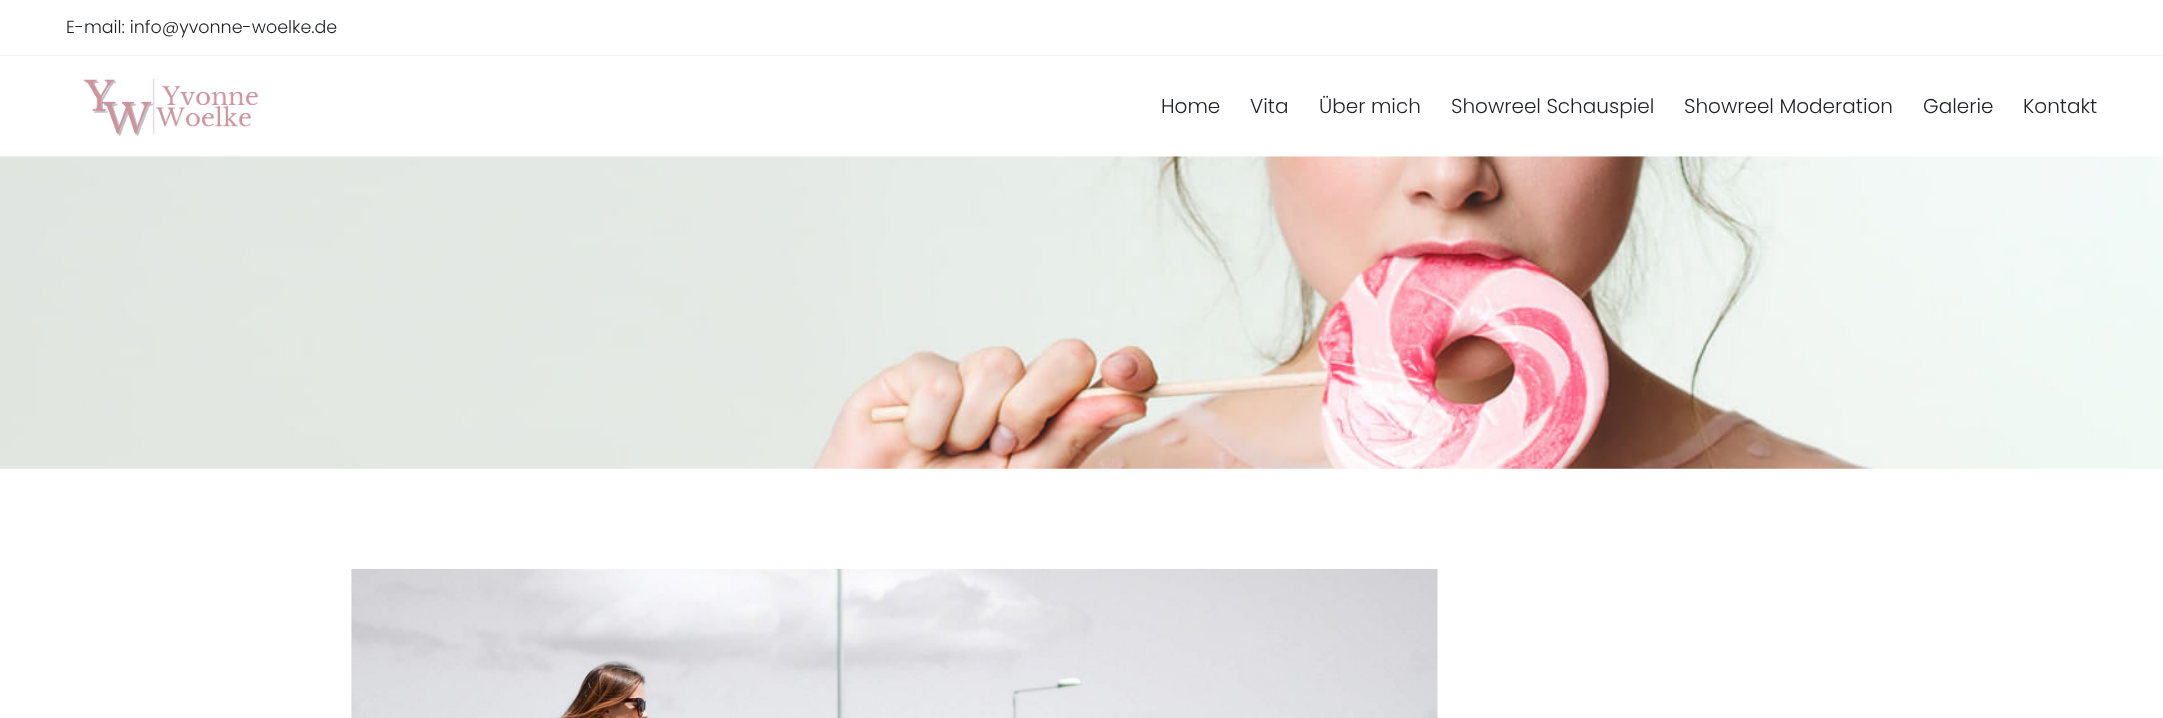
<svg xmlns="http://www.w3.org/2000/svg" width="2163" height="718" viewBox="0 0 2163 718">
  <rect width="100%" height="100%" fill="#ffffff"/>
  <rect x="0" y="55" width="2163" height="1" fill="#f4f4f4"/>
  <text x="66" y="33" font-family="Poppins" font-size="17.5" font-weight="300" fill="#222328">E-mail: info@yvonne-woelke.de</text>
  <image x="83" y="78" width="176" height="58" href="img1.png"/>
  <text x="1161" y="113" font-family="Poppins" font-size="20" font-weight="300" fill="#222328">Home</text>
  <text x="1250" y="113" font-family="Poppins" font-size="20" font-weight="300" fill="#222328">Vita</text>
  <text x="1319" y="113" font-family="Poppins" font-size="20" font-weight="300" fill="#222328">Über mich</text>
  <text x="1451" y="113" font-family="Poppins" font-size="20" font-weight="300" fill="#222328">Showreel Schauspiel</text>
  <text x="1684" y="113" font-family="Poppins" font-size="20" font-weight="300" fill="#222328">Showreel Moderation</text>
  <text x="1923" y="113" font-family="Poppins" font-size="20" font-weight="300" fill="#222328">Galerie</text>
  <text x="2023" y="113" font-family="Poppins" font-size="20" font-weight="300" fill="#222328">Kontakt</text>
  <image x="0" y="156" width="2163" height="313" href="img2.png"/>
  <image x="351" y="568" width="1087" height="150" href="img3.png"/>
</svg>
